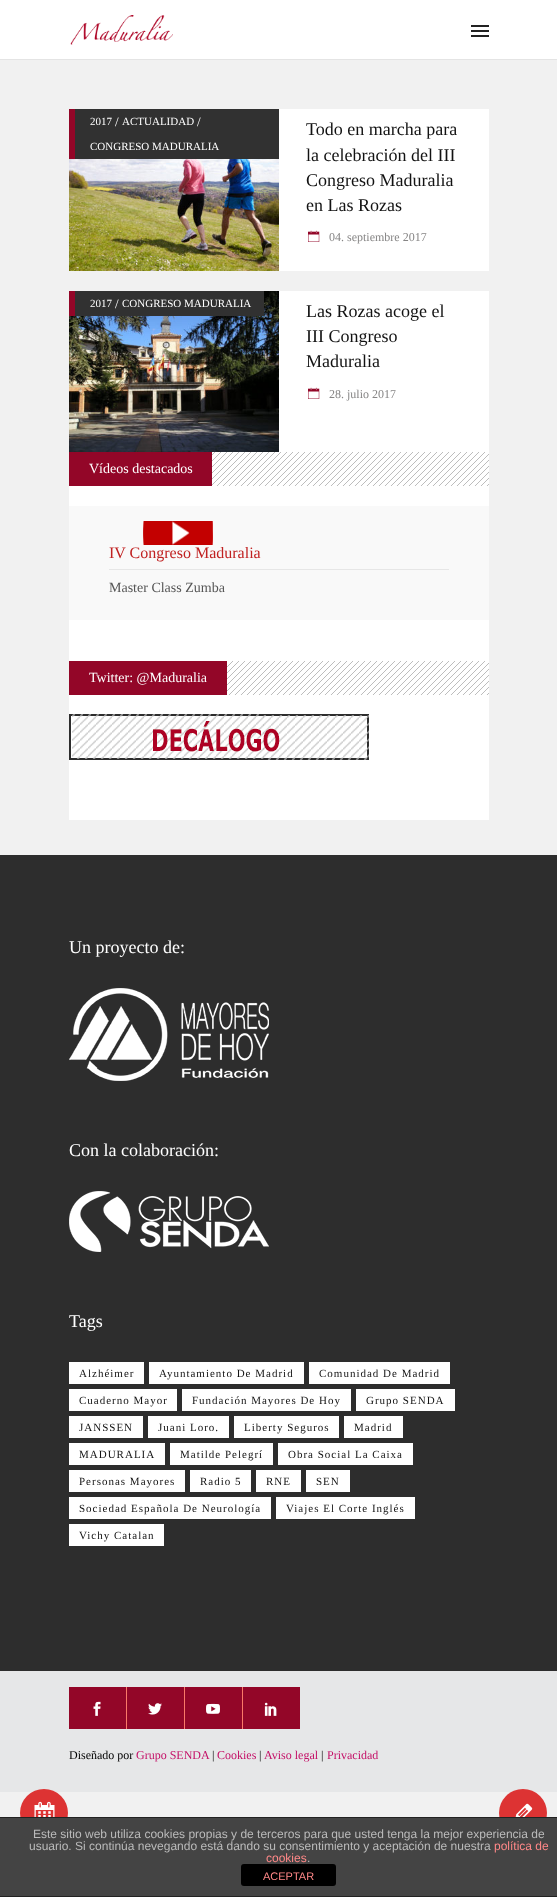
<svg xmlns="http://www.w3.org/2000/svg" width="557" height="1897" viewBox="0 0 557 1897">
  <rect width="100%" height="100%" fill="#f1f1f1"/>
  <rect x="0" y="0" width="557" height="59" fill="#ffffff"/>
  <rect x="0" y="59" width="557" height="1" fill="#e4e4e4"/>
  <image x="70" y="15" width="103" height="30" href="img1.png"/>
  <rect x="471" y="25" width="18" height="2" fill="#222222"/>
  <rect x="471" y="30" width="18" height="2" fill="#222222"/>
  <rect x="471" y="35" width="18" height="2" fill="#222222"/>
  <rect x="75" y="109" width="204" height="50" fill="#313131"/>
  <rect x="69" y="109" width="6" height="50" fill="#930628"/>
  <text x="90" y="125" font-family="Liberation Serif" font-size="11" fill="#ffffff">2017</text>
  <text x="115" y="126" font-family="Liberation Serif" font-size="13" fill="#ffffff">/</text>
  <text x="122" y="125" font-family="Liberation Serif" font-size="11" fill="#ffffff">ACTUALIDAD</text>
  <text x="197" y="126" font-family="Liberation Serif" font-size="13" fill="#ffffff">/</text>
  <text x="90" y="150" font-family="Liberation Serif" font-size="11" fill="#ffffff">CONGRESO MADURALIA</text>
  <image x="69" y="159" width="210" height="112" href="img2.png"/>
  <rect x="279" y="109" width="210" height="162" fill="#ffffff"/>
  <text x="306" y="135" font-family="Liberation Serif" font-size="18" fill="#121212">Todo en marcha para</text>
  <text x="306" y="161" font-family="Liberation Serif" font-size="18" fill="#121212">la celebración del III</text>
  <text x="306" y="186" font-family="Liberation Serif" font-size="18" fill="#121212">Congreso Maduralia</text>
  <text x="306" y="211" font-family="Liberation Serif" font-size="18" fill="#121212">en Las Rozas</text>
  <image x="308" y="230" width="12" height="12" href="img3.png"/>
  <text x="329" y="241" font-family="Liberation Serif" font-size="12" fill="#868585">04. septiembre 2017</text>
  <image x="69" y="291" width="210" height="161" href="img4.png"/>
  <rect x="75" y="291" width="189" height="25" fill="#313131"/>
  <rect x="69" y="291" width="6" height="25" fill="#930628"/>
  <text x="90" y="307" font-family="Liberation Serif" font-size="11" fill="#ffffff">2017</text>
  <text x="115" y="308" font-family="Liberation Serif" font-size="13" fill="#ffffff">/</text>
  <text x="122" y="307" font-family="Liberation Serif" font-size="11" fill="#ffffff">CONGRESO MADURALIA</text>
  <rect x="279" y="291" width="210" height="161" fill="#ffffff"/>
  <text x="306" y="317" font-family="Liberation Serif" font-size="18" fill="#121212">Las Rozas acoge el</text>
  <text x="306" y="342" font-family="Liberation Serif" font-size="18" fill="#121212">III Congreso</text>
  <text x="306" y="367" font-family="Liberation Serif" font-size="18" fill="#121212">Maduralia</text>
  <image x="308" y="387" width="12" height="12" href="img3.png"/>
  <text x="329" y="398" font-family="Liberation Serif" font-size="12" fill="#868585">28. julio 2017</text>
  <rect x="69" y="452" width="420" height="368" fill="#ffffff"/>
  <image x="212" y="452" width="277" height="34" href="img5.png"/>
  <rect x="69" y="452" width="143" height="34" fill="#930628"/>
  <text x="89" y="473" font-family="Liberation Serif" font-size="14" fill="#ffffff">Vídeos destacados</text>
  <rect x="69" y="506" width="420" height="114" fill="#f9f9f9"/>
  <image x="143" y="521" width="70" height="24" href="img6.png"/>
  <rect x="109" y="569" width="340" height="1" fill="#e6e6e6"/>
  <text x="109" y="558" font-family="Liberation Serif" font-size="16" fill="#c02121">IV Congreso Maduralia</text>
  <text x="109" y="592" font-family="Liberation Serif" font-size="14" fill="#555555">Master Class Zumba</text>
  <image x="227" y="661" width="262" height="34" href="img7.png"/>
  <rect x="69" y="661" width="158" height="34" fill="#930628"/>
  <text x="89" y="682" font-family="Liberation Serif" font-size="14" fill="#ffffff">Twitter: @Maduralia</text>
  <image x="69" y="714" width="300" height="46" href="img8.png"/>
  <rect x="0" y="855" width="557" height="816" fill="#2d2d2d"/>
  <text x="69" y="953" font-family="Liberation Serif" font-size="18" fill="#ffffff">Un proyecto de:</text>
  <image x="69" y="988" width="200" height="93" href="img9.png"/>
  <text x="69" y="1156" font-family="Liberation Serif" font-size="18" fill="#ffffff">Con la colaboración:</text>
  <image x="69" y="1191" width="200" height="61" href="img10.png"/>
  <text x="69" y="1327" font-family="Liberation Serif" font-size="18" fill="#ffffff">Tags</text>
  <rect x="69" y="1362" width="75" height="22" fill="#ffffff"/>
  <text x="79" y="1377" font-family="Liberation Serif" font-size="11" letter-spacing="1" fill="#121212">Alzhéimer</text>
  <rect x="149" y="1362" width="155" height="22" fill="#ffffff"/>
  <text x="159" y="1377" font-family="Liberation Serif" font-size="11" letter-spacing="1" fill="#121212">Ayuntamiento De Madrid</text>
  <rect x="309" y="1362" width="141" height="22" fill="#ffffff"/>
  <text x="319" y="1377" font-family="Liberation Serif" font-size="11" letter-spacing="1" fill="#121212">Comunidad De Madrid</text>
  <rect x="69" y="1389" width="108" height="22" fill="#ffffff"/>
  <text x="79" y="1404" font-family="Liberation Serif" font-size="11" letter-spacing="1" fill="#121212">Cuaderno Mayor</text>
  <rect x="182" y="1389" width="169" height="22" fill="#ffffff"/>
  <text x="192" y="1404" font-family="Liberation Serif" font-size="11" letter-spacing="1" fill="#121212">Fundación Mayores De Hoy</text>
  <rect x="356" y="1389" width="99" height="22" fill="#ffffff"/>
  <text x="366" y="1404" font-family="Liberation Serif" font-size="11" letter-spacing="1" fill="#121212">Grupo SENDA</text>
  <rect x="69" y="1416" width="74" height="22" fill="#ffffff"/>
  <text x="79" y="1431" font-family="Liberation Serif" font-size="11" letter-spacing="1" fill="#121212">JANSSEN</text>
  <rect x="148" y="1416" width="81" height="22" fill="#ffffff"/>
  <text x="158" y="1431" font-family="Liberation Serif" font-size="11" letter-spacing="1" fill="#121212">Juani Loro.</text>
  <rect x="234" y="1416" width="105" height="22" fill="#ffffff"/>
  <text x="244" y="1431" font-family="Liberation Serif" font-size="11" letter-spacing="1" fill="#121212">Liberty Seguros</text>
  <rect x="344" y="1416" width="59" height="22" fill="#ffffff"/>
  <text x="354" y="1431" font-family="Liberation Serif" font-size="11" letter-spacing="1" fill="#121212">Madrid</text>
  <rect x="69" y="1443" width="96" height="22" fill="#ffffff"/>
  <text x="79" y="1458" font-family="Liberation Serif" font-size="11" letter-spacing="1" fill="#121212">MADURALIA</text>
  <rect x="170" y="1443" width="103" height="22" fill="#ffffff"/>
  <text x="180" y="1458" font-family="Liberation Serif" font-size="11" letter-spacing="1" fill="#121212">Matilde Pelegrí</text>
  <rect x="278" y="1443" width="135" height="22" fill="#ffffff"/>
  <text x="288" y="1458" font-family="Liberation Serif" font-size="11" letter-spacing="1" fill="#121212">Obra Social La Caixa</text>
  <rect x="69" y="1470" width="116" height="22" fill="#ffffff"/>
  <text x="79" y="1485" font-family="Liberation Serif" font-size="11" letter-spacing="1" fill="#121212">Personas Mayores</text>
  <rect x="190" y="1470" width="61" height="22" fill="#ffffff"/>
  <text x="200" y="1485" font-family="Liberation Serif" font-size="11" letter-spacing="1" fill="#121212">Radio 5</text>
  <rect x="256" y="1470" width="45" height="22" fill="#ffffff"/>
  <text x="266" y="1485" font-family="Liberation Serif" font-size="11" letter-spacing="1" fill="#121212">RNE</text>
  <rect x="306" y="1470" width="44" height="22" fill="#ffffff"/>
  <text x="316" y="1485" font-family="Liberation Serif" font-size="11" letter-spacing="1" fill="#121212">SEN</text>
  <rect x="69" y="1497" width="202" height="22" fill="#ffffff"/>
  <text x="79" y="1512" font-family="Liberation Serif" font-size="11" letter-spacing="1" fill="#121212">Sociedad Española De Neurología</text>
  <rect x="276" y="1497" width="139" height="22" fill="#ffffff"/>
  <text x="286" y="1512" font-family="Liberation Serif" font-size="11" letter-spacing="1" fill="#121212">Viajes El Corte Inglés</text>
  <rect x="69" y="1524" width="95" height="22" fill="#ffffff"/>
  <text x="79" y="1539" font-family="Liberation Serif" font-size="11" letter-spacing="1" fill="#121212">Vichy Catalan</text>
  <rect x="0" y="1671" width="557" height="121" fill="#e6e7e8"/>
  <rect x="69" y="1687" width="57" height="42" fill="#930628"/>
  <image x="93" y="1701" width="8" height="15" href="img11.png"/>
  <rect x="126" y="1687" width="1" height="42" fill="#fb7968"/>
  <rect x="127" y="1687" width="57" height="42" fill="#930628"/>
  <image x="148" y="1703" width="14" height="12" href="img12.png"/>
  <rect x="184" y="1687" width="1" height="42" fill="#fb7968"/>
  <rect x="185" y="1687" width="57" height="42" fill="#930628"/>
  <image x="206" y="1703" width="14" height="11" href="img13.png"/>
  <rect x="242" y="1687" width="1" height="42" fill="#fb7968"/>
  <rect x="243" y="1687" width="57" height="42" fill="#930628"/>
  <image x="264" y="1702" width="13" height="14" href="img14.png"/>
  <text x="69" y="1759" font-family="Liberation Serif" font-size="12" fill="#000000">Diseñado por</text>
  <text x="136" y="1759" font-family="Liberation Serif" font-size="12" fill="#c41067">Grupo SENDA</text>
  <text x="212" y="1759" font-family="Liberation Serif" font-size="12" fill="#000000">|</text>
  <text x="217" y="1759" font-family="Liberation Serif" font-size="12" fill="#c41067">Cookies</text>
  <text x="259" y="1759" font-family="Liberation Serif" font-size="12" fill="#000000">|</text>
  <text x="264" y="1759" font-family="Liberation Serif" font-size="12" fill="#c41067">Aviso legal</text>
  <text x="321" y="1759" font-family="Liberation Serif" font-size="12" fill="#000000">|</text>
  <text x="327" y="1759" font-family="Liberation Serif" font-size="12" fill="#c41067">Privacidad</text>
  <circle cx="44" cy="1813" r="24" fill="#dd3333"/>
  <image x="34" y="1801" width="21" height="16" href="img15.png"/>
  <circle cx="523" cy="1813" r="24" fill="#dd3333"/>
  <image x="515" y="1803" width="18" height="14" href="img16.png"/>
  <rect x="0" y="1818" width="557" height="78" fill="#444444"/>
  <rect x="0" y="1817" width="557" height="1" fill="#222222"/>
  <rect x="0" y="1896" width="557" height="1" fill="#222222"/>
  <text x="33" y="1838" font-family="Liberation Sans" font-size="12" fill="#bbbbbb">Este sitio web utiliza cookies propias y de terceros para que usted tenga la mejor experiencia de</text>
  <text x="29" y="1850" font-family="Liberation Sans" font-size="12" fill="#bbbbbb">usuario. Si continúa nevegando está dando su consentimiento y aceptación de nuestra</text>
  <text x="494" y="1850" font-family="Liberation Sans" font-size="12" fill="#ff8888">política de</text>
  <text x="266" y="1862" font-family="Liberation Sans" font-size="12" fill="#ff8888">cookies</text>
  <text x="307" y="1862" font-family="Liberation Sans" font-size="12" fill="#bbbbbb">.</text>
  <rect x="241" y="1864" width="95" height="22" rx="3" fill="#000000"/>
  <text x="263" y="1880" font-family="Liberation Sans" font-size="11" fill="#ff8888">ACEPTAR</text>
</svg>
